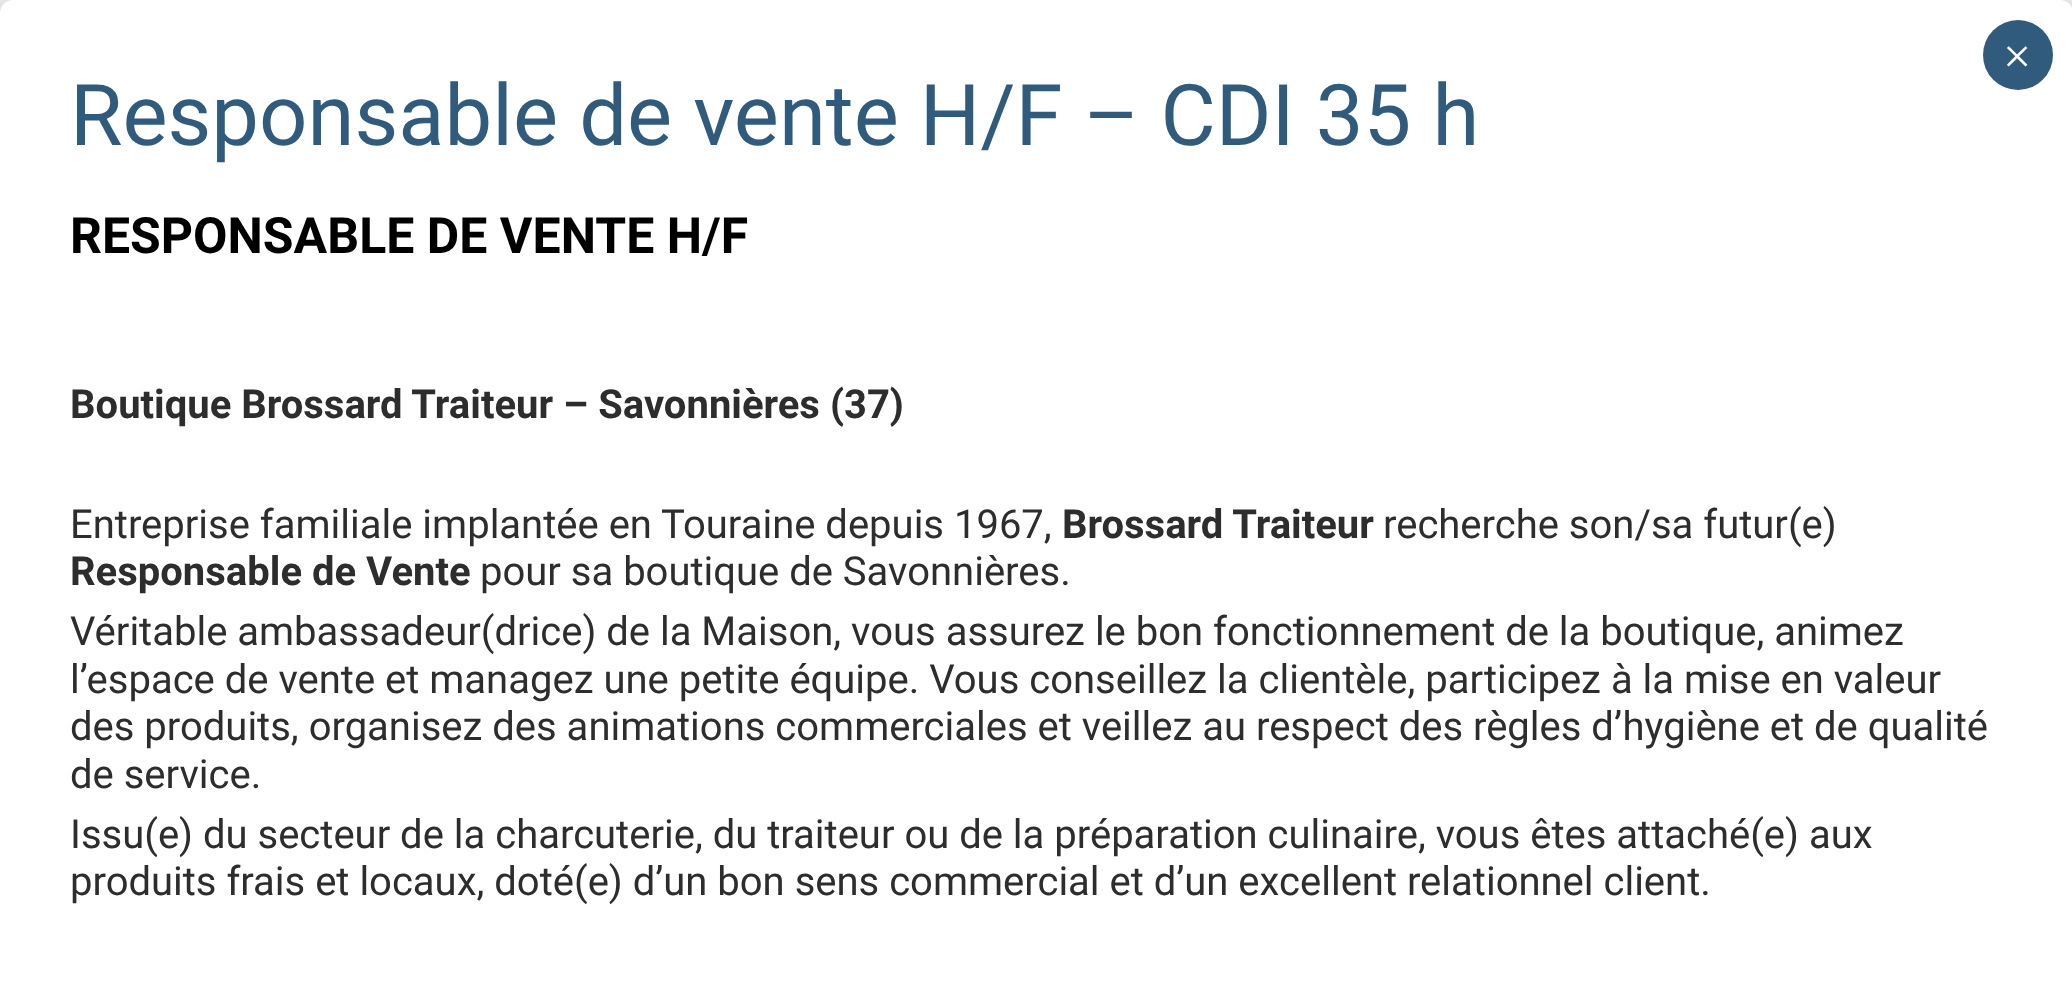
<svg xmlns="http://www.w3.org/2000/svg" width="2072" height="984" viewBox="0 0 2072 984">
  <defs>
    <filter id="blur1" x="-50%" y="-200%" width="200%" height="500%"><feGaussianBlur stdDeviation="31"/></filter>
  </defs>
  <rect width="100%" height="100%" fill="#ffffff"/>
  <rect x="-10" y="15" width="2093" height="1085" rx="23" fill="#020202" fill-opacity="0.5" filter="url(#blur1)"/>
  <rect x="0" y="0" width="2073" height="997" rx="13" fill="#ffffff"/>
  <circle cx="2018" cy="55" r="35" fill="#315b7c"/>
  <text x="2003" y="73" font-family="Liberation Serif" font-size="50" fill="#ffffff">×</text>
  <text x="70" y="145" font-family="Roboto" font-size="85" fill="#315b7c">Responsable de vente H/F – CDI 35 h</text>
  <text x="70" y="253" font-family="Roboto" font-size="50" font-weight="bold" fill="#000000">RESPONSABLE DE VENTE H/F</text>
  <text x="70" y="418" font-family="Roboto" font-size="40" font-weight="bold" fill="#2d2d2d">Boutique Brossard Traiteur – Savonnières (37)</text>
  <text x="70" y="538" font-family="Roboto" font-size="40" fill="#2d2d2d">Entreprise familiale implantée en Touraine depuis 1967,</text>
  <text x="1062" y="538" font-family="Roboto" font-size="40" font-weight="bold" fill="#2d2d2d">Brossard Traiteur</text>
  <text x="1383" y="538" font-family="Roboto" font-size="40" fill="#2d2d2d">recherche son/sa futur(e)</text>
  <text x="70" y="585" font-family="Roboto" font-size="40" font-weight="bold" fill="#2d2d2d">Responsable de Vente</text>
  <text x="480" y="585" font-family="Roboto" font-size="40" fill="#2d2d2d">pour sa boutique de Savonnières.</text>
  <text x="70" y="645" font-family="Roboto" font-size="40" fill="#2d2d2d">Véritable ambassadeur(drice) de la Maison, vous assurez le bon fonctionnement de la boutique, animez</text>
  <text x="70" y="693" font-family="Roboto" font-size="40" fill="#2d2d2d">l’espace de vente et managez une petite équipe. Vous conseillez la clientèle, participez à la mise en valeur</text>
  <text x="70" y="740" font-family="Roboto" font-size="40" fill="#2d2d2d">des produits, organisez des animations commerciales et veillez au respect des règles d’hygiène et de qualité</text>
  <text x="70" y="788" font-family="Roboto" font-size="40" fill="#2d2d2d">de service.</text>
  <text x="70" y="848" font-family="Roboto" font-size="40" fill="#2d2d2d">Issu(e) du secteur de la charcuterie, du traiteur ou de la préparation culinaire, vous êtes attaché(e) aux</text>
  <text x="70" y="895" font-family="Roboto" font-size="40" fill="#2d2d2d">produits frais et locaux, doté(e) d’un bon sens commercial et d’un excellent relationnel client.</text>
</svg>
